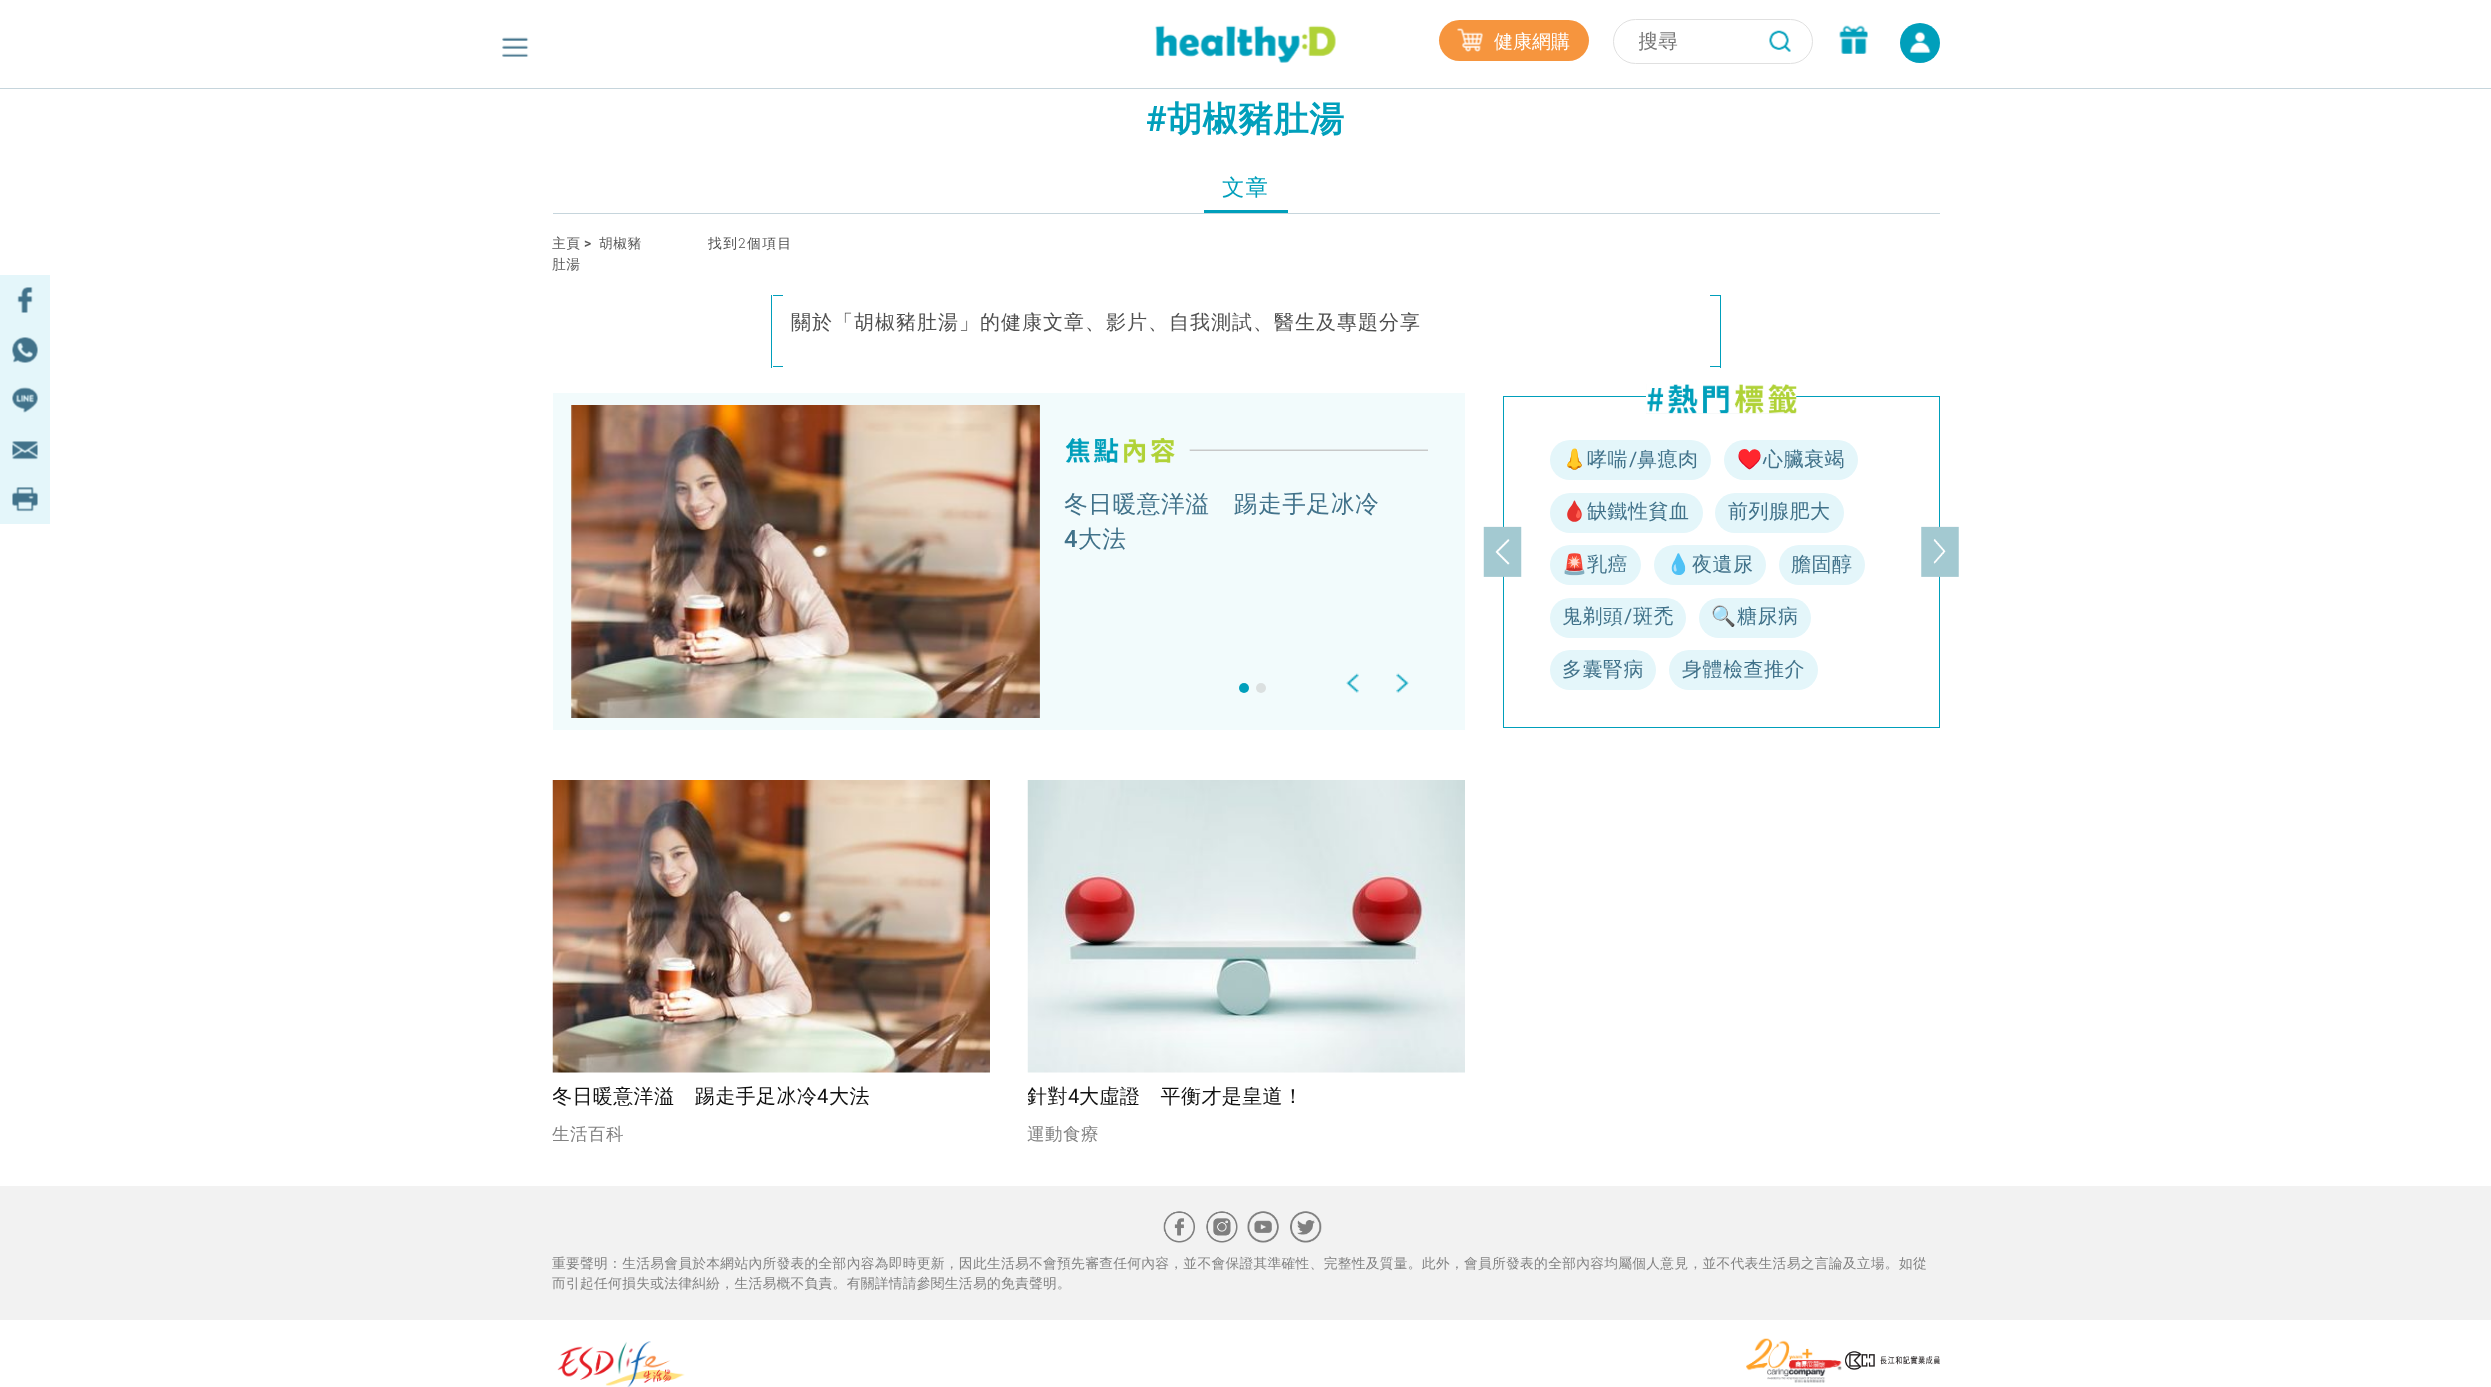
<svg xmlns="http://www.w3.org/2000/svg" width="2491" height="1387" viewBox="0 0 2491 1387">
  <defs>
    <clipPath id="clip1"><rect x="1639" y="29" width="147" height="26"/></clipPath>
    <clipPath id="clip2"><rect x="553" y="1080" width="437" height="34"/></clipPath>
    <clipPath id="clip3"><rect x="1028" y="1080" width="437" height="34"/></clipPath>
  </defs>
  <rect width="100%" height="100%" fill="#ffffff"/>
  <rect x="0" y="88" width="2491" height="1" fill="#c6d5dc"/>
  <image x="502" y="37" width="27" height="20" href="img1.png"/>
  <image x="1155" y="25" width="181" height="38" href="img2.png"/>
  <rect x="1439" y="20" width="150" height="41" rx="20.5" fill="#f6953e"/>
  <image x="1457" y="28" width="26" height="24" href="img3.png"/>
  <text x="1494" y="48" font-family="WenQuanYi Zen Hei" font-size="19" font-weight="500" fill="#ffffff">健康網購</text>
  <rect x="1613.5" y="19.5" width="199" height="44" rx="22" fill="none" stroke="#e0e0e0"/>
  <g clip-path="url(#clip1)">
    <text x="1638" y="48" font-family="WenQuanYi Zen Hei" font-size="20" font-weight="500" fill="#757575">搜尋</text>
  </g>
  <image x="1769" y="30" width="22" height="22" href="img4.png"/>
  <image x="1839" y="25" width="29" height="29" href="img5.png"/>
  <circle cx="1920" cy="43" r="20" fill="#009fbb"/>
  <image x="1909" y="31" width="22" height="22" href="img6.png"/>
  <rect x="0" y="275" width="50" height="249" fill="#e4f6fa"/>
  <image x="17" y="287" width="16" height="26" href="img7.png"/>
  <image x="12" y="337" width="26" height="26" href="img8.png"/>
  <image x="12" y="387" width="26" height="26" href="img9.png"/>
  <image x="12" y="441" width="26" height="19" href="img10.png"/>
  <image x="12" y="487" width="26" height="25" href="img11.png"/>
  <text x="1146" y="131" font-family="Roboto" font-size="35" font-weight="bold" letter-spacing="0.5" fill="#009fbb">#</text>
  <text x="1167" y="131" font-family="WenQuanYi Zen Hei" font-size="35" font-weight="bold" letter-spacing="0.5" fill="#009fbb">胡椒豬肚湯</text>
  <rect x="553" y="213" width="1387" height="1" fill="#c6d5dc"/>
  <rect x="1204" y="210" width="84" height="3" fill="#009fbb"/>
  <text x="1222" y="195" font-family="WenQuanYi Zen Hei" font-size="22.5" font-weight="500" letter-spacing="1" fill="#009fbb">文章</text>
  <text x="552" y="248" font-family="WenQuanYi Zen Hei" font-size="13.75" font-weight="500" letter-spacing="0.5" fill="#595959">主頁</text>
  <text x="584" y="248" font-family="Roboto" font-size="13.75" font-weight="500" letter-spacing="0.5" fill="#595959">&gt;</text>
  <text x="599" y="248" font-family="WenQuanYi Zen Hei" font-size="13.75" font-weight="500" letter-spacing="0.5" fill="#595959">胡椒豬</text>
  <text x="552" y="269" font-family="WenQuanYi Zen Hei" font-size="13.75" font-weight="500" letter-spacing="0.5" fill="#595959">肚湯</text>
  <text x="708" y="248" font-family="WenQuanYi Zen Hei" font-size="13.75" font-weight="500" letter-spacing="1.5" fill="#4f4f4f">找到</text>
  <text x="738" y="248" font-family="Roboto" font-size="13.75" font-weight="300" letter-spacing="1.5" fill="#4f4f4f">2</text>
  <text x="747" y="248" font-family="WenQuanYi Zen Hei" font-size="13.75" font-weight="500" letter-spacing="1.5" fill="#4f4f4f">個項目</text>
  <rect x="1710" y="366" width="10" height="1" fill="#009fbb"/>
  <rect x="773" y="366" width="10" height="1" fill="#009fbb"/>
  <rect x="1710" y="295" width="10" height="1" fill="#009fbb"/>
  <rect x="773" y="295" width="10" height="1" fill="#009fbb"/>
  <rect x="1720" y="295" width="1" height="73" fill="#009fbb"/>
  <rect x="771" y="295" width="1" height="73" fill="#009fbb"/>
  <text x="791" y="329" font-family="WenQuanYi Zen Hei" font-size="20" font-weight="500" letter-spacing="1" fill="#4f4f4f">關於「胡椒豬肚湯」的健康文章、影片、自我測試、醫生及專題分享</text>
  <rect x="553" y="393" width="912" height="337" fill="#f2fbfc"/>
  <image x="571" y="405" width="469" height="313" href="img12.png"/>
  <image x="1065" y="437" width="363" height="26" href="img13.png"/>
  <text x="1064" y="512" font-family="WenQuanYi Zen Hei" font-size="23.75" font-weight="500" letter-spacing="0.5" fill="#41728a">冬日暖意洋溢　踢走手足冰冷</text>
  <text x="1064" y="547" font-family="Roboto" font-size="23.75" font-weight="500" letter-spacing="0.5" fill="#41728a">4</text>
  <text x="1078" y="547" font-family="WenQuanYi Zen Hei" font-size="23.75" font-weight="500" letter-spacing="0.5" fill="#41728a">大法</text>
  <circle cx="1244" cy="688" r="5" fill="#009fbb"/>
  <circle cx="1261" cy="688" r="5" fill="#dbe0e0"/>
  <image x="1346" y="673" width="13" height="20" href="img14.png"/>
  <image x="1396" y="673" width="13" height="20" href="img15.png"/>
  <rect x="1503.5" y="396.5" width="436" height="331" fill="none" stroke="#009fbb"/>
  <rect x="1646" y="384" width="150" height="30" fill="#f6f8f9"/>
  <image x="1646" y="384" width="151" height="30" href="img16.png"/>
  <image x="1483" y="526" width="39" height="51" href="img17.png"/>
  <rect x="1550" y="440" width="161" height="40" rx="20" fill="#e4f6fa"/>
  <text x="1562" y="466" font-family="Noto Color Emoji" font-size="20" letter-spacing="0.5" fill="#41728a">👃</text>
  <text x="1587" y="466" font-family="WenQuanYi Zen Hei" font-size="20" font-weight="500" letter-spacing="0.5" fill="#41728a">哮喘</text>
  <text x="1629" y="466" font-family="Roboto" font-size="20" letter-spacing="0.5" fill="#41728a">/</text>
  <text x="1637" y="466" font-family="WenQuanYi Zen Hei" font-size="20" font-weight="500" letter-spacing="0.5" fill="#41728a">鼻瘜肉</text>
  <rect x="1724" y="440" width="134" height="40" rx="20" fill="#e4f6fa"/>
  <text x="1737" y="466" font-family="Noto Color Emoji" font-size="20" letter-spacing="0.5" fill="#41728a">♥️</text>
  <text x="1763" y="466" font-family="WenQuanYi Zen Hei" font-size="20" font-weight="500" letter-spacing="0.5" fill="#41728a">心臟衰竭</text>
  <rect x="1550" y="493" width="153" height="40" rx="20" fill="#e4f6fa"/>
  <text x="1562" y="518" font-family="Noto Color Emoji" font-size="20" letter-spacing="0.5" fill="#41728a">🩸</text>
  <text x="1587" y="518" font-family="WenQuanYi Zen Hei" font-size="20" font-weight="500" letter-spacing="0.5" fill="#41728a">缺鐵性貧血</text>
  <rect x="1715" y="493" width="129" height="40" rx="20" fill="#e4f6fa"/>
  <text x="1728" y="518" font-family="WenQuanYi Zen Hei" font-size="20" font-weight="500" letter-spacing="0.5" fill="#41728a">前列腺肥大</text>
  <rect x="1550" y="545" width="91" height="40" rx="20" fill="#e4f6fa"/>
  <text x="1562" y="571" font-family="Noto Color Emoji" font-size="20" letter-spacing="0.5" fill="#41728a">🚨</text>
  <text x="1587" y="571" font-family="WenQuanYi Zen Hei" font-size="20" font-weight="500" letter-spacing="0.5" fill="#41728a">乳癌</text>
  <rect x="1654" y="545" width="112" height="40" rx="20" fill="#e4f6fa"/>
  <text x="1666" y="571" font-family="Noto Color Emoji" font-size="20" letter-spacing="0.5" fill="#41728a">💧</text>
  <text x="1692" y="571" font-family="WenQuanYi Zen Hei" font-size="20" font-weight="500" letter-spacing="0.5" fill="#41728a">夜遺尿</text>
  <rect x="1779" y="545" width="86" height="40" rx="20" fill="#e4f6fa"/>
  <text x="1791" y="571" font-family="WenQuanYi Zen Hei" font-size="20" font-weight="500" letter-spacing="0.5" fill="#41728a">膽固醇</text>
  <rect x="1550" y="598" width="136" height="40" rx="20" fill="#e4f6fa"/>
  <text x="1562" y="623" font-family="WenQuanYi Zen Hei" font-size="20" font-weight="500" letter-spacing="0.5" fill="#41728a">鬼剃頭</text>
  <text x="1624" y="623" font-family="Roboto" font-size="20" letter-spacing="0.5" fill="#41728a">/</text>
  <text x="1633" y="623" font-family="WenQuanYi Zen Hei" font-size="20" font-weight="500" letter-spacing="0.5" fill="#41728a">斑禿</text>
  <rect x="1699" y="598" width="112" height="40" rx="20" fill="#e4f6fa"/>
  <text x="1711" y="623" font-family="Noto Color Emoji" font-size="20" letter-spacing="0.5" fill="#41728a">🔍</text>
  <text x="1737" y="623" font-family="WenQuanYi Zen Hei" font-size="20" font-weight="500" letter-spacing="0.5" fill="#41728a">糖尿病</text>
  <rect x="1550" y="650" width="106" height="40" rx="20" fill="#e4f6fa"/>
  <text x="1562" y="676" font-family="WenQuanYi Zen Hei" font-size="20" font-weight="500" letter-spacing="0.5" fill="#41728a">多囊腎病</text>
  <rect x="1669" y="650" width="149" height="40" rx="20" fill="#e4f6fa"/>
  <text x="1682" y="676" font-family="WenQuanYi Zen Hei" font-size="20" font-weight="500" letter-spacing="0.5" fill="#41728a">身體檢查推介</text>
  <image x="1921" y="526" width="38" height="51" href="img18.png"/>
  <image x="552" y="780" width="438" height="293" href="img19.png"/>
  <g clip-path="url(#clip2)">
    <text x="552" y="1103" font-family="WenQuanYi Zen Hei" font-size="20" font-weight="500" letter-spacing="0.4" fill="#111111">冬日暖意洋溢　踢走手足冰冷</text>
  </g>
  <text x="817" y="1103" font-family="Roboto" font-size="20" letter-spacing="0.4" fill="#111111">4</text>
  <text x="829" y="1103" font-family="WenQuanYi Zen Hei" font-size="20" font-weight="500" letter-spacing="0.4" fill="#111111">大法</text>
  <text x="552" y="1140" font-family="WenQuanYi Zen Hei" font-size="17.5" font-weight="500" letter-spacing="0.5" fill="#828282">生活百科</text>
  <image x="1027" y="780" width="438" height="293" href="img20.png"/>
  <g clip-path="url(#clip3)">
    <text x="1027" y="1103" font-family="WenQuanYi Zen Hei" font-size="20" font-weight="500" letter-spacing="0.4" fill="#111111">針對</text>
  </g>
  <text x="1068" y="1103" font-family="Roboto" font-size="20" letter-spacing="0.4" fill="#111111">4</text>
  <text x="1079" y="1103" font-family="WenQuanYi Zen Hei" font-size="20" font-weight="500" letter-spacing="0.4" fill="#111111">大虛證　平衡才是皇道！</text>
  <text x="1027" y="1140" font-family="WenQuanYi Zen Hei" font-size="17.5" font-weight="500" letter-spacing="0.5" fill="#828282">運動食療</text>
  <rect x="0" y="1186" width="2491" height="134" fill="#f2f2f2"/>
  <image x="1163" y="1211" width="32" height="32" href="img21.png"/>
  <image x="1206" y="1211" width="32" height="32" href="img22.png"/>
  <image x="1247" y="1211" width="32" height="32" href="img23.png"/>
  <image x="1290" y="1211" width="32" height="32" href="img24.png"/>
  <text x="552" y="1268" font-family="WenQuanYi Zen Hei" font-size="13.75" font-weight="500" letter-spacing="0.28" fill="#828282">重要聲明：生活易會員於本網站內所發表的全部內容為即時更新，因此生活易不會預先審查任何內容，並不會保證其準確性、完整性及質量。此外，會員所發表的全部內容均屬個人意見，並不代表生活易之言論及立場。如從</text>
  <text x="552" y="1288" font-family="WenQuanYi Zen Hei" font-size="13.75" font-weight="500" letter-spacing="0.28" fill="#828282">而引起任何損失或法律糾紛，生活易概不負責。有關詳情請參閱生活易的免責聲明。</text>
  <image x="557" y="1341" width="128" height="46" href="img25.png"/>
  <image x="1746" y="1338" width="96" height="45" href="img26.png"/>
  <image x="1845" y="1351" width="95" height="19" href="img27.png"/>
</svg>
